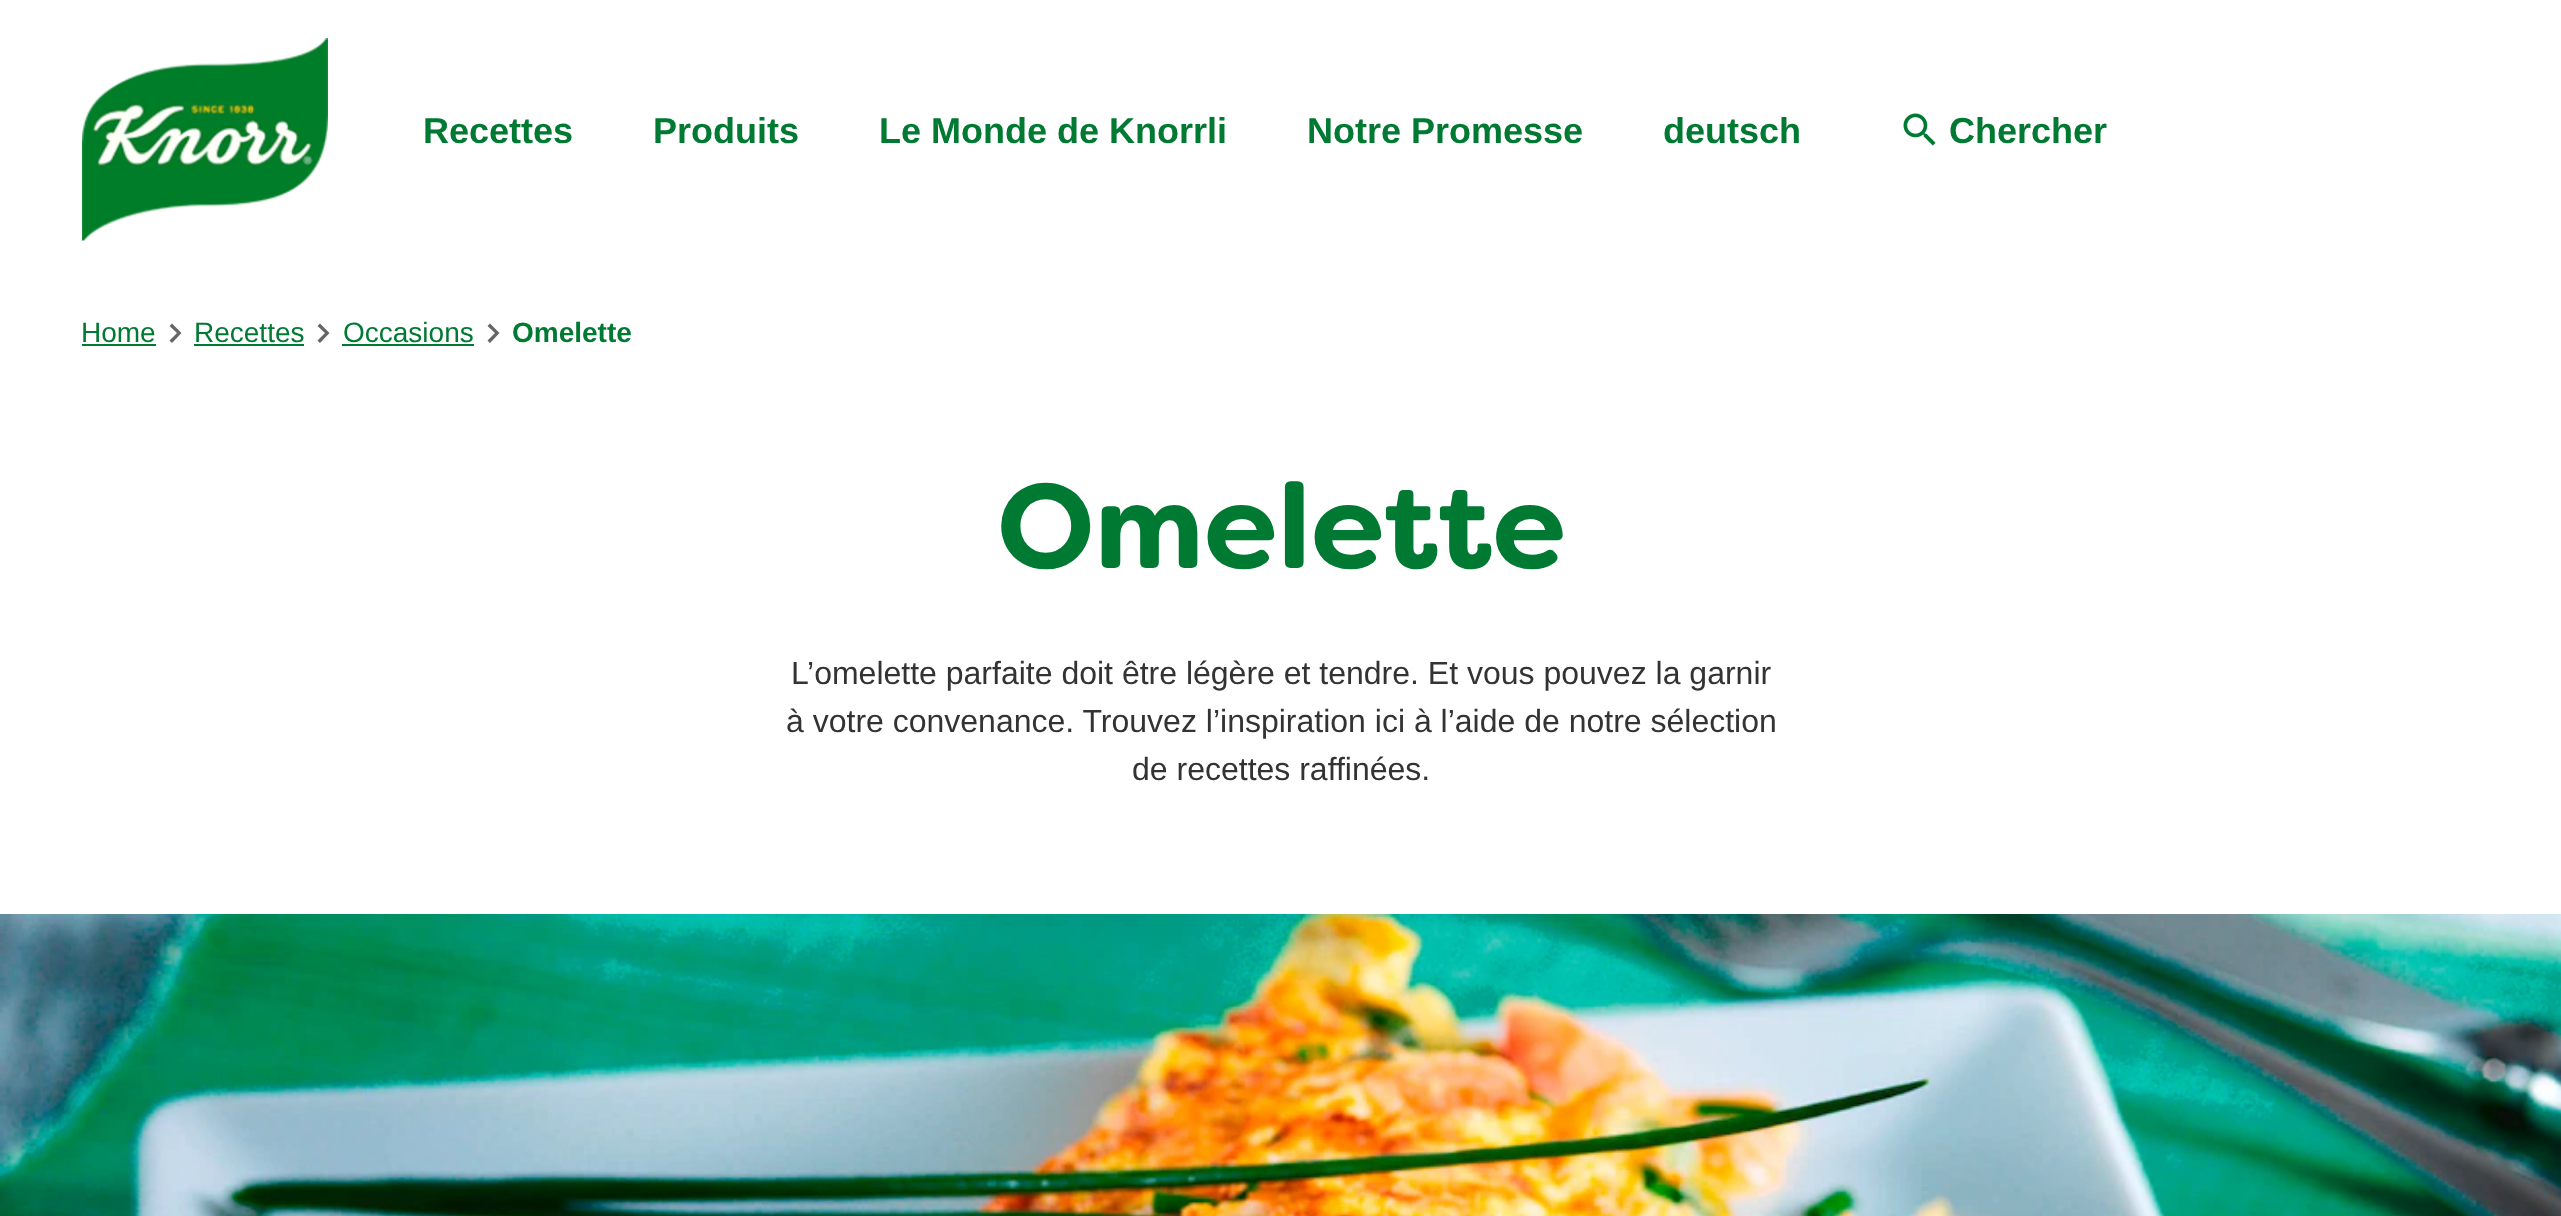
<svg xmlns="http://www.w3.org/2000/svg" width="2561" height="1216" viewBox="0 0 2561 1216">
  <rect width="100%" height="100%" fill="#ffffff"/>
  <image x="82" y="38" width="246" height="203" href="img1.png"/>
  <text x="423" y="143" font-family="Liberation Sans" font-size="36" font-weight="bold" fill="#007a33">Recettes</text>
  <text x="653" y="143" font-family="Liberation Sans" font-size="36" font-weight="bold" fill="#007a33">Produits</text>
  <text x="879" y="143" font-family="Liberation Sans" font-size="36" font-weight="bold" fill="#007a33">Le Monde de Knorrli</text>
  <text x="1307" y="143" font-family="Liberation Sans" font-size="36" font-weight="bold" fill="#007a33">Notre Promesse</text>
  <text x="1663" y="143" font-family="Liberation Sans" font-size="36" font-weight="bold" fill="#007a33">deutsch</text>
  <image x="1903" y="113" width="33" height="33" href="img2.png"/>
  <text x="1949" y="143" font-family="Liberation Sans" font-size="36" font-weight="bold" fill="#007a33">Chercher</text>
  <text x="81" y="342" font-family="Liberation Sans" font-size="28" fill="#007a33">Home</text>
  <rect x="82" y="344" width="74" height="2" fill="#007a33"/>
  <path d="M172 323.5L169.5 326L177 333L169.5 340.5L172 343L181.5 333Z" fill="#666666"/>
  <text x="194" y="342" font-family="Liberation Sans" font-size="28" fill="#007a33">Recettes</text>
  <rect x="194" y="344" width="110" height="2" fill="#007a33"/>
  <path d="M320 323.5L317.5 326L325 333L317.5 340.5L320 343L329.5 333Z" fill="#666666"/>
  <text x="343" y="342" font-family="Liberation Sans" font-size="28" fill="#007a33">Occasions</text>
  <rect x="342" y="344" width="132" height="2" fill="#007a33"/>
  <path d="M490 323.5L487.5 326L495 333L487.5 340.5L490 343L499.5 333Z" fill="#666666"/>
  <text x="512" y="342" font-family="Liberation Sans" font-size="28" font-weight="bold" fill="#007a33">Omelette</text>
  <text x="997" y="568" font-family="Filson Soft" font-size="120" font-weight="bold" fill="#007a33">Omelette</text>
  <text x="791" y="684" font-family="Liberation Sans" font-size="32" fill="#333333">L’omelette parfaite doit être légère et tendre. Et vous pouvez la garnir</text>
  <text x="786" y="732" font-family="Liberation Sans" font-size="32" fill="#333333">à votre convenance. Trouvez l’inspiration ici à l’aide de notre sélection</text>
  <text x="1132" y="780" font-family="Liberation Sans" font-size="32" fill="#333333">de recettes raffinées.</text>
  <image x="0" y="914" width="2561" height="302" href="img3.png"/>
</svg>
